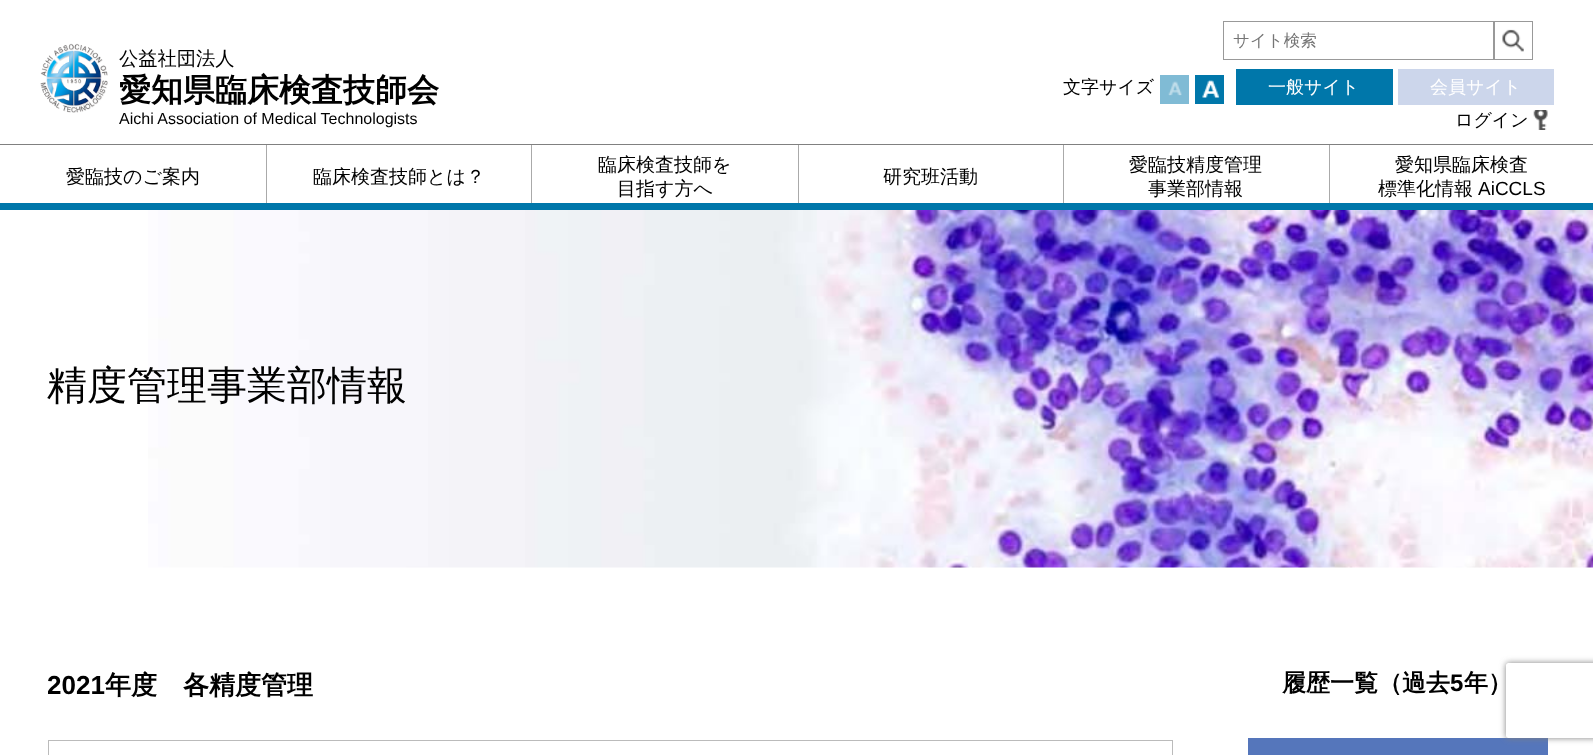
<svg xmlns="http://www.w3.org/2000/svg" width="1593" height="755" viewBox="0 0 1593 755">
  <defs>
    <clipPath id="clip1"><rect x="48" y="668" width="1500" height="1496"/></clipPath>
    <clipPath id="clip2"><path d="M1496 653H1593V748H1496ZM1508.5 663H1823.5C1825 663 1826 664 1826 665.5V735.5C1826 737 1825 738 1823.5 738H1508.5C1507 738 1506 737 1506 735.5V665.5C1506 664 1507 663 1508.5 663Z" clip-rule="evenodd"/></clipPath>
    <filter id="blur1" x="-50%" y="-200%" width="200%" height="500%"><feGaussianBlur stdDeviation="3"/></filter>
  </defs>
  <rect width="100%" height="100%" fill="#ffffff"/>
  <rect x="0" y="203" width="1593" height="7" fill="#0077aa"/>
  <rect x="1223.5" y="21.5" width="270" height="38" fill="none" stroke="#999999"/>
  <text x="1233" y="46" font-family="WenQuanYi Zen Hei" font-size="16.5" font-weight="500" fill="#757575">サイト検索</text>
  <image x="1502" y="29" width="22" height="23" href="img1.png"/>
  <rect x="1494.5" y="21.5" width="38" height="38" fill="none" stroke="#999999"/>
  <image x="40" y="43" width="68" height="70" href="img2.png"/>
  <text x="119" y="65" font-family="WenQuanYi Zen Hei" font-size="19.25" font-weight="500" fill="#000000">公益社団法人</text>
  <text x="119" y="101" font-family="WenQuanYi Zen Hei" font-size="32" font-weight="bold" fill="#000000">愛知県臨床検査技師会</text>
  <text x="119" y="124" font-family="Liberation Sans" font-size="16" fill="#000000">Aichi Association of Medical Technologists</text>
  <text x="1063" y="93" font-family="WenQuanYi Zen Hei" font-size="18" font-weight="500" fill="#000000">文字サイズ</text>
  <rect x="1160" y="75" width="29" height="29" fill="#80bbd5"/>
  <image x="1168" y="81" width="14" height="15" href="img3.png"/>
  <rect x="1195" y="75" width="29" height="29" fill="#0077aa"/>
  <image x="1202" y="80" width="18" height="18" href="img4.png"/>
  <rect x="1236" y="69" width="157" height="36" fill="#0077aa"/>
  <text x="1268" y="93" font-family="WenQuanYi Zen Hei" font-size="18" font-weight="500" fill="#ffffff">一般サイト</text>
  <rect x="1398" y="69" width="156" height="36" fill="#ccd6eb"/>
  <text x="1430" y="93" font-family="WenQuanYi Zen Hei" font-size="18" font-weight="500" fill="#ffffff">会員サイト</text>
  <text x="1455" y="126" font-family="WenQuanYi Zen Hei" font-size="18" font-weight="500" fill="#000000">ログイン</text>
  <image x="1533" y="110" width="15" height="20" href="img5.png"/>
  <rect x="0" y="144" width="1593" height="1" fill="#808080"/>
  <text x="66" y="183" font-family="WenQuanYi Zen Hei" font-size="19" font-weight="500" fill="#000000">愛臨技のご案内</text>
  <rect x="266" y="145" width="1" height="58" fill="#aaaaaa"/>
  <text x="313" y="183" font-family="WenQuanYi Zen Hei" font-size="19" font-weight="500" fill="#000000">臨床検査技師とは？</text>
  <rect x="531" y="145" width="1" height="58" fill="#aaaaaa"/>
  <text x="598" y="171" font-family="WenQuanYi Zen Hei" font-size="19" font-weight="500" fill="#000000">臨床検査技師を</text>
  <text x="617" y="195" font-family="WenQuanYi Zen Hei" font-size="19" font-weight="500" fill="#000000">目指す方へ</text>
  <rect x="798" y="145" width="1" height="58" fill="#aaaaaa"/>
  <text x="883" y="183" font-family="WenQuanYi Zen Hei" font-size="19" font-weight="500" fill="#000000">研究班活動</text>
  <rect x="1063" y="145" width="1" height="58" fill="#aaaaaa"/>
  <text x="1129" y="171" font-family="WenQuanYi Zen Hei" font-size="19" font-weight="500" fill="#000000">愛臨技精度管理</text>
  <text x="1148" y="195" font-family="WenQuanYi Zen Hei" font-size="19" font-weight="500" fill="#000000">事業部情報</text>
  <rect x="1329" y="145" width="1" height="58" fill="#aaaaaa"/>
  <text x="1395" y="171" font-family="WenQuanYi Zen Hei" font-size="19" font-weight="500" fill="#000000">愛知県臨床検査</text>
  <text x="1378" y="195" font-family="WenQuanYi Zen Hei" font-size="19" font-weight="500" fill="#000000">標準化情報</text>
  <text x="1478" y="195" font-family="Liberation Sans" font-size="19" fill="#000000">AiCCLS</text>
  <image x="148" y="210" width="1445" height="358" href="img6.png"/>
  <text x="47" y="399" font-family="WenQuanYi Zen Hei" font-size="40" font-weight="500" fill="#000000">精度管理事業部情報</text>
  <g clip-path="url(#clip1)">
    <text x="47" y="694" font-family="Liberation Sans" font-size="26" font-weight="bold" fill="#000000">2021</text>
  </g>
  <text x="105" y="694" font-family="WenQuanYi Zen Hei" font-size="26" font-weight="bold" fill="#000000">年度　各精度管理</text>
  <rect x="48.5" y="740.5" width="1124" height="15" fill="none" stroke="#bbbbbb"/>
  <text x="1282" y="691" font-family="WenQuanYi Zen Hei" font-size="24" font-weight="bold" fill="#000000">履歴一覧（過去</text>
  <text x="1450" y="691" font-family="Liberation Sans" font-size="24" font-weight="bold" fill="#000000">5</text>
  <text x="1464" y="691" font-family="WenQuanYi Zen Hei" font-size="24" font-weight="bold" fill="#000000">年）</text>
  <rect x="1248" y="738" width="300" height="17" fill="#5576bb"/>
  <g clip-path="url(#clip2)">
    <rect x="1506" y="663" width="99" height="75" rx="2.5" fill="#808080" filter="url(#blur1)"/>
  </g>
</svg>
